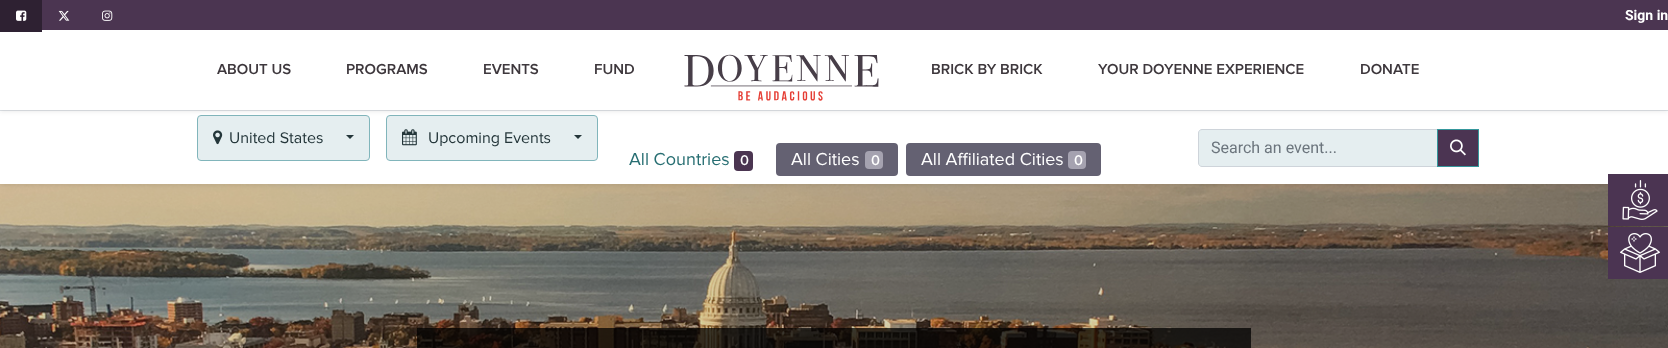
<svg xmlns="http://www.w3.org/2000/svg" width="1668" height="348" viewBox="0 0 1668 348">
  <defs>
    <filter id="blur1" x="-50%" y="-200%" width="200%" height="500%"><feGaussianBlur stdDeviation="2"/></filter>
  </defs>
  <rect width="100%" height="100%" fill="#ffffff"/>
  <image x="0" y="184" width="1668" height="164" href="img8.png"/>
  <rect x="0" y="184" width="1668" height="164" fill="#3e383d" fill-opacity="0.2"/>
  <rect x="0" y="112" width="1668" height="74" fill="#000000" fill-opacity="0.07" filter="url(#blur1)"/>
  <rect x="0" y="111" width="1668" height="73" fill="#ffffff"/>
  <rect x="0" y="110" width="1668" height="1" fill="#dee2e6"/>
  <rect x="197.5" y="115.5" width="172" height="45" rx="3.5" fill="#e5eef0" stroke="#81b5bb"/>
  <rect x="386.5" y="115.5" width="211" height="45" rx="3.5" fill="#e5eef0" stroke="#81b5bb"/>
  <rect x="0" y="32" width="1668" height="80" fill="#000000" fill-opacity="0.07" filter="url(#blur1)"/>
  <rect x="42" y="0" width="1626" height="30" fill="#4b3551"/>
  <rect x="0" y="30" width="1668" height="80" fill="#ffffff"/>
  <rect x="0" y="0" width="42" height="32" fill="#2e2132"/>
  <image x="16" y="10" width="11" height="11" href="img1.png"/>
  <image x="58" y="10" width="12" height="11" href="img2.png"/>
  <image x="102" y="10" width="11" height="11" href="img3.png"/>
  <text x="1625" y="20" font-family="Roboto" font-size="14" font-weight="bold" fill="#ffffff">Sign in</text>
  <text x="217" y="74" font-family="Proxima Nova" font-size="15" font-weight="600" fill="#3e383d">ABOUT US</text>
  <text x="346" y="74" font-family="Proxima Nova" font-size="15" font-weight="600" fill="#3e383d">PROGRAMS</text>
  <text x="483" y="74" font-family="Proxima Nova" font-size="15" font-weight="600" fill="#3e383d">EVENTS</text>
  <text x="594" y="74" font-family="Proxima Nova" font-size="15" font-weight="600" fill="#3e383d">FUND</text>
  <image x="684" y="54" width="195" height="47" href="img4.png"/>
  <text x="931" y="74" font-family="Proxima Nova" font-size="15" font-weight="600" fill="#3e383d">BRICK BY BRICK</text>
  <text x="1098" y="74" font-family="Proxima Nova" font-size="15" font-weight="600" fill="#3e383d">YOUR DOYENNE EXPERIENCE</text>
  <text x="1360" y="74" font-family="Proxima Nova" font-size="15" font-weight="600" fill="#3e383d">DONATE</text>
  <image x="213" y="130" width="10" height="15" href="img5.png"/>
  <text x="229" y="143" font-family="Proxima Nova" font-size="16" fill="#24363a">United States</text>
  <path d="M346 135H354L350 139Z" fill="#24363a"/>
  <image x="402" y="129" width="15" height="17" href="img6.png"/>
  <text x="428" y="143" font-family="Proxima Nova" font-size="16" fill="#24363a">Upcoming Events</text>
  <path d="M574 135H582L578 139Z" fill="#24363a"/>
  <text x="629" y="165" font-family="Proxima Nova" font-size="18" fill="#276e72">All Countries</text>
  <rect x="734" y="151" width="19" height="20" rx="4" fill="#4b3551"/>
  <text x="740" y="165" font-family="Proxima Nova" font-size="14" font-weight="bold" fill="#ffffff">0</text>
  <rect x="776" y="143" width="122" height="33" rx="4" fill="#646172"/>
  <text x="791" y="165" font-family="Proxima Nova" font-size="18" fill="#ffffff">All Cities</text>
  <rect x="865" y="151" width="18" height="18" rx="4" fill="#a5a2b0"/>
  <text x="871" y="165" font-family="Proxima Nova" font-size="14" font-weight="bold" fill="#ffffff">0</text>
  <rect x="906" y="143" width="195" height="33" rx="4" fill="#646172"/>
  <text x="921" y="165" font-family="Proxima Nova" font-size="18" fill="#ffffff">All Affiliated Cities</text>
  <rect x="1068" y="151" width="18" height="18" rx="4" fill="#a5a2b0"/>
  <text x="1074" y="165" font-family="Proxima Nova" font-size="14" font-weight="bold" fill="#ffffff">0</text>
  <path d="M1202 129.5H1437.5V166.5H1202C1200 166.5 1198.5 165 1198.5 163V133C1198.5 131 1200 129.5 1202 129.5Z" fill="#e5eef0" stroke="#ced4da"/>
  <text x="1211" y="153" font-family="Roboto" font-size="16" fill="#6c757d">Search an event...</text>
  <rect x="1437.5" y="129.5" width="41" height="37" fill="#4b3452" stroke="#35979c"/>
  <image x="1450" y="139" width="16" height="17" href="img7.png"/>
  <rect x="417" y="328" width="834" height="20" fill="#000000" fill-opacity="0.74"/>
  <rect x="1608" y="174" width="60" height="52" fill="#4b3452"/>
  <image x="1622" y="180" width="36" height="40" href="img9.png"/>
  <rect x="1608" y="227" width="60" height="52" fill="#4b3452"/>
  <image x="1620" y="233" width="40" height="40" href="img10.png"/>
</svg>
